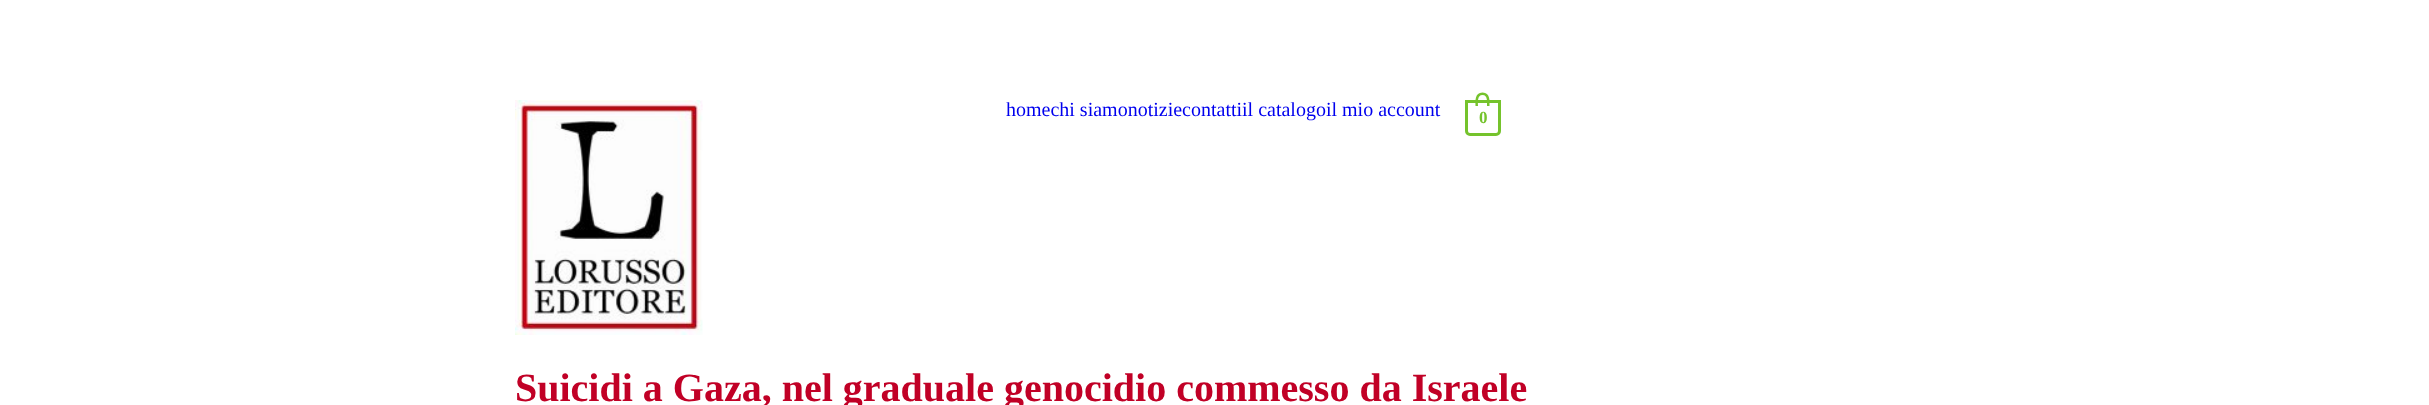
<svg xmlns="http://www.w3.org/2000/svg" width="2429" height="405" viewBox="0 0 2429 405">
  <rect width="100%" height="100%" fill="#ffffff"/>
  <image x="515" y="100" width="188" height="235" href="img1.png"/>
  <text x="1006" y="116" font-family="Liberation Serif" font-size="20" fill="#0000ee">homechi siamonotiziecontattiil catalogoil mio account</text>
  <path d="M1466.5 101.5H1499.5V131C1499.5 133 1498 134.5 1496 134.5H1470C1468 134.5 1466.5 133 1466.5 131Z" fill="none" stroke="#75c32c" stroke-width="3"/>
  <path d="M1482.5 92.5C1490.5 92.5 1489.5 101 1489.5 106H1475.5C1475.5 101 1474.5 92.5 1482.5 92.5ZM1482.5 95C1488 95 1487 102.5 1487 106H1478C1478 102.5 1477 95 1482.5 95Z" fill="#75c32c" fill-rule="evenodd"/>
  <text x="1479" y="123" font-family="Liberation Serif" font-size="17" font-weight="bold" fill="#75c32c">0</text>
  <text x="515" y="401" font-family="Liberation Serif" font-size="40" font-weight="bold" fill="#c10026">Suicidi a Gaza, nel graduale genocidio commesso da Israele</text>
</svg>
